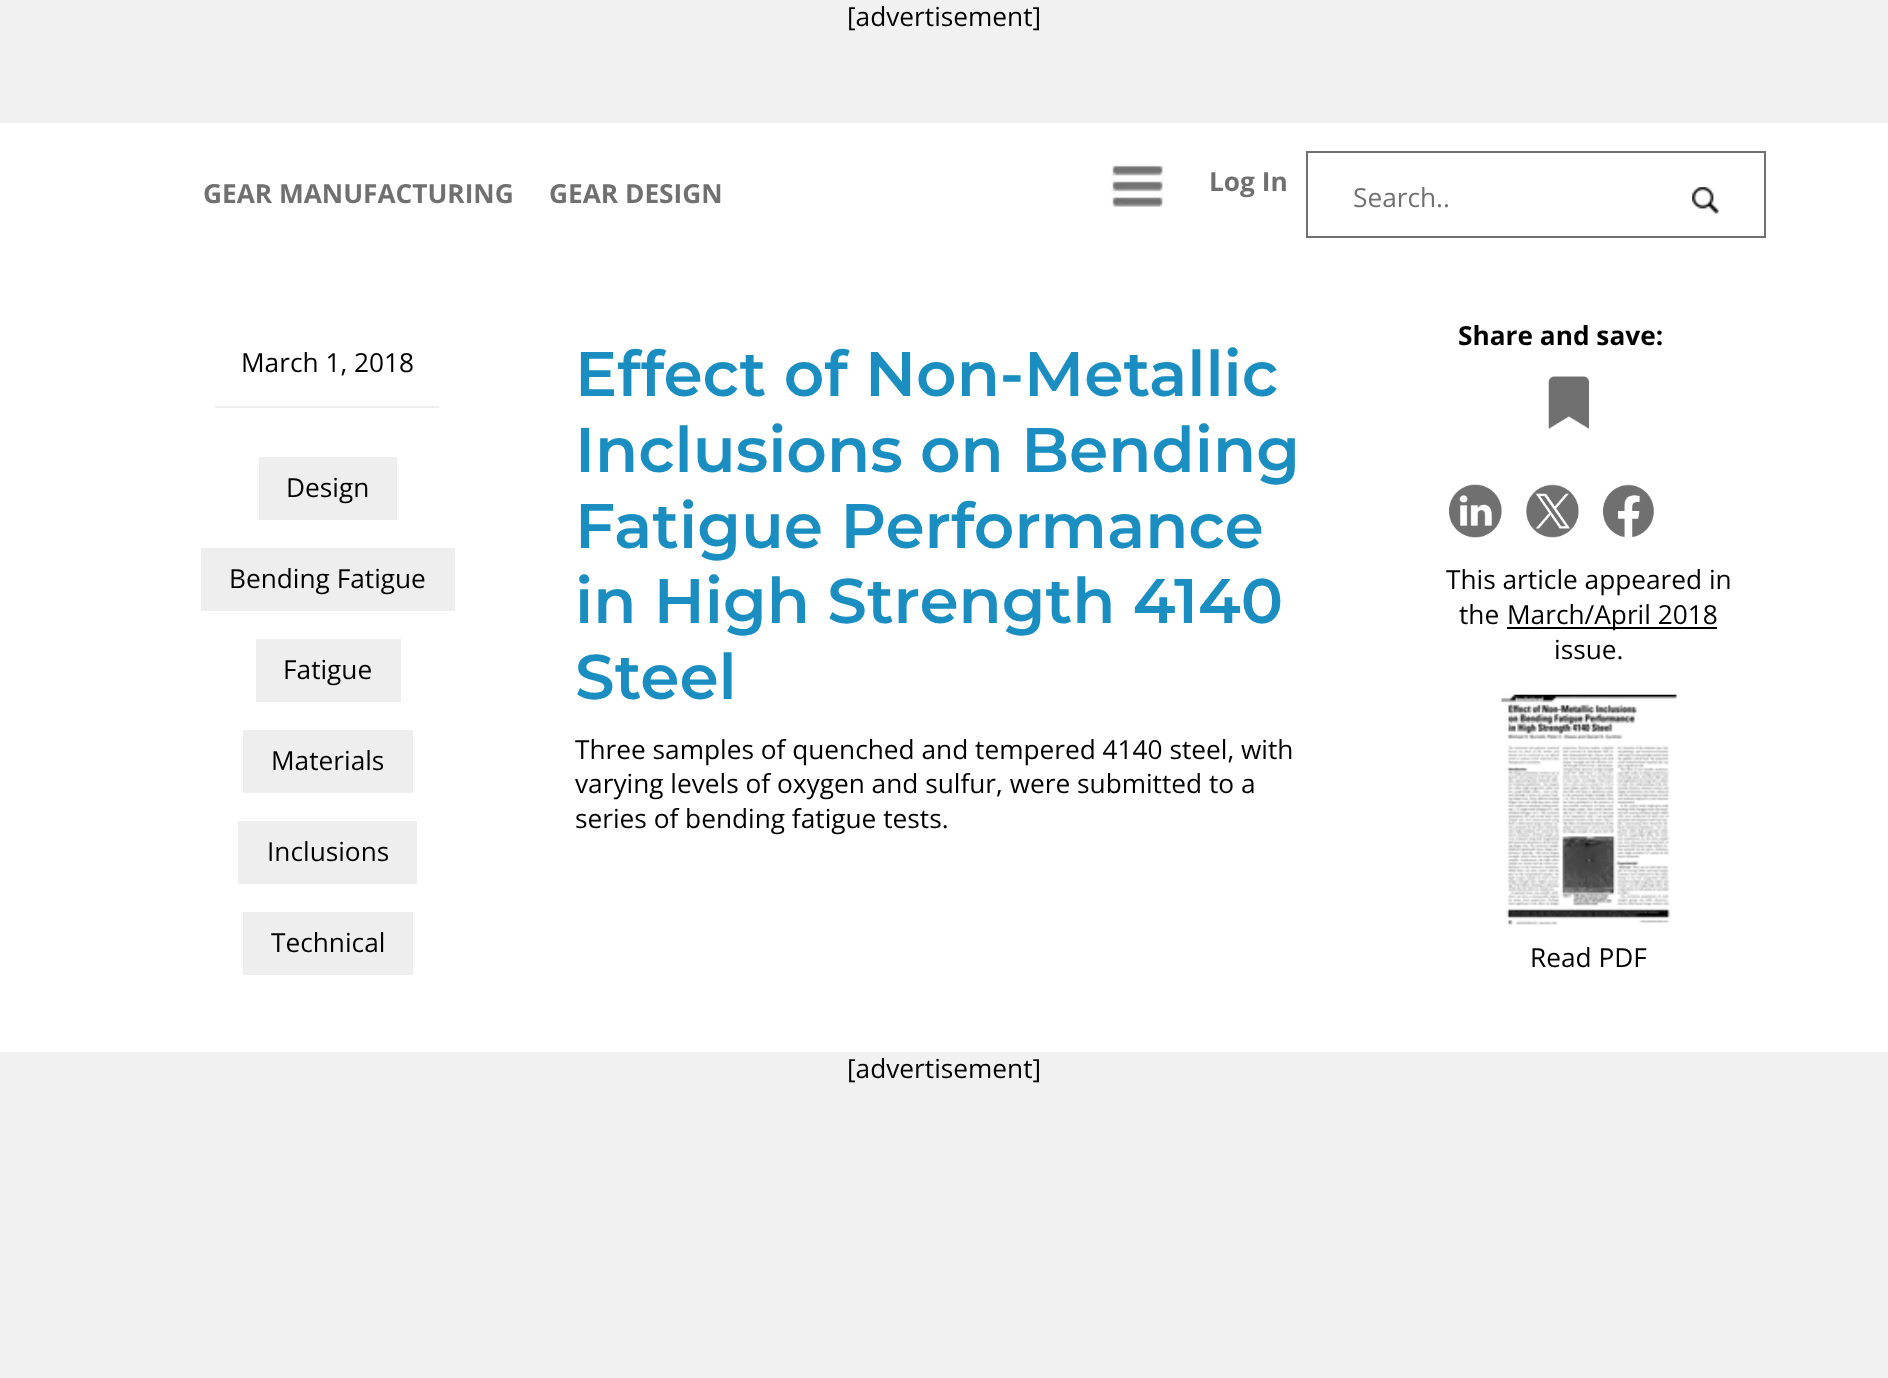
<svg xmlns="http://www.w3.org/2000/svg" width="1888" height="1378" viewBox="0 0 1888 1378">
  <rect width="100%" height="100%" fill="#ffffff"/>
  <rect x="0" y="0" width="1888" height="123" fill="#f1f1f1"/>
  <text x="847" y="26" font-family="Open Sans" font-size="26.25" fill="#000000">[advertisement]</text>
  <text x="203" y="203" font-family="Open Sans" font-size="26.25" font-weight="bold" fill="#707070">GEAR MANUFACTURING</text>
  <text x="549" y="203" font-family="Open Sans" font-size="26.25" font-weight="bold" fill="#707070">GEAR DESIGN</text>
  <image x="1111" y="164" width="53" height="43" href="img1.png"/>
  <text x="1209" y="191" font-family="Open Sans" font-size="26.25" font-weight="bold" fill="#707070">Log In</text>
  <rect x="1307" y="152" width="458" height="85" fill="none" stroke="#707070" stroke-width="2"/>
  <text x="1353" y="207" font-family="Open Sans" font-size="26.25" fill="#707070">Search..</text>
  <image x="1692" y="187" width="27" height="27" href="img2.png"/>
  <text x="241" y="372" font-family="Open Sans" font-size="26.25" fill="#000000">March 1, 2018</text>
  <rect x="215" y="406" width="224" height="2" fill="#eeeeee"/>
  <rect x="259" y="457" width="138" height="63" fill="#eeeeee"/>
  <text x="286" y="497" font-family="Open Sans" font-size="26.25" fill="#000000">Design</text>
  <rect x="201" y="548" width="254" height="63" fill="#eeeeee"/>
  <text x="229" y="588" font-family="Open Sans" font-size="26.25" fill="#000000">Bending Fatigue</text>
  <rect x="256" y="639" width="145" height="63" fill="#eeeeee"/>
  <text x="283" y="679" font-family="Open Sans" font-size="26.25" fill="#000000">Fatigue</text>
  <rect x="243" y="730" width="170" height="63" fill="#eeeeee"/>
  <text x="271" y="770" font-family="Open Sans" font-size="26.25" fill="#000000">Materials</text>
  <rect x="238" y="821" width="179" height="63" fill="#eeeeee"/>
  <text x="267" y="861" font-family="Open Sans" font-size="26.25" fill="#000000">Inclusions</text>
  <rect x="243" y="912" width="170" height="63" fill="#eeeeee"/>
  <text x="271" y="952" font-family="Open Sans" font-size="26.25" fill="#000000">Technical</text>
  <text x="575" y="396" font-family="Montserrat" font-size="63" font-weight="600" fill="#1a8ec1">Effect of Non-Metallic</text>
  <text x="575" y="472" font-family="Montserrat" font-size="63" font-weight="600" fill="#1a8ec1">Inclusions on Bending</text>
  <text x="575" y="548" font-family="Montserrat" font-size="63" font-weight="600" fill="#1a8ec1">Fatigue Performance</text>
  <text x="575" y="623" font-family="Montserrat" font-size="63" font-weight="600" fill="#1a8ec1">in High Strength 4140</text>
  <text x="575" y="699" font-family="Montserrat" font-size="63" font-weight="600" fill="#1a8ec1">Steel</text>
  <text x="575" y="759" font-family="Open Sans" font-size="26.25" fill="#000000">Three samples of quenched and tempered 4140 steel, with</text>
  <text x="575" y="793" font-family="Open Sans" font-size="26.25" fill="#000000">varying levels of oxygen and sulfur, were submitted to a</text>
  <text x="575" y="828" font-family="Open Sans" font-size="26.25" fill="#000000">series of bending fatigue tests.</text>
  <text x="1458" y="345" font-family="Open Sans" font-size="26.25" font-weight="bold" fill="#000000">Share and save:</text>
  <image x="1548" y="376" width="41" height="53" href="img3.png"/>
  <image x="1449" y="484" width="53" height="54" href="img4.png"/>
  <image x="1526" y="484" width="53" height="54" href="img5.png"/>
  <image x="1603" y="484" width="51" height="54" href="img6.png"/>
  <text x="1446" y="589" font-family="Open Sans" font-size="26.25" fill="#000000">This article appeared in</text>
  <text x="1459" y="624" font-family="Open Sans" font-size="26.25" fill="#000000">the</text>
  <rect x="1507" y="627" width="210" height="2" fill="#000000"/>
  <text x="1507" y="624" font-family="Open Sans" font-size="26.25" fill="#000000">March/April 2018</text>
  <text x="1554" y="659" font-family="Open Sans" font-size="26.25" fill="#000000">issue.</text>
  <image x="1501" y="694" width="176" height="231" href="img7.png"/>
  <text x="1530" y="967" font-family="Open Sans" font-size="26.25" fill="#000000">Read PDF</text>
  <rect x="0" y="1052" width="1888" height="326" fill="#f1f1f1"/>
  <text x="847" y="1078" font-family="Open Sans" font-size="26.25" fill="#000000">[advertisement]</text>
</svg>
